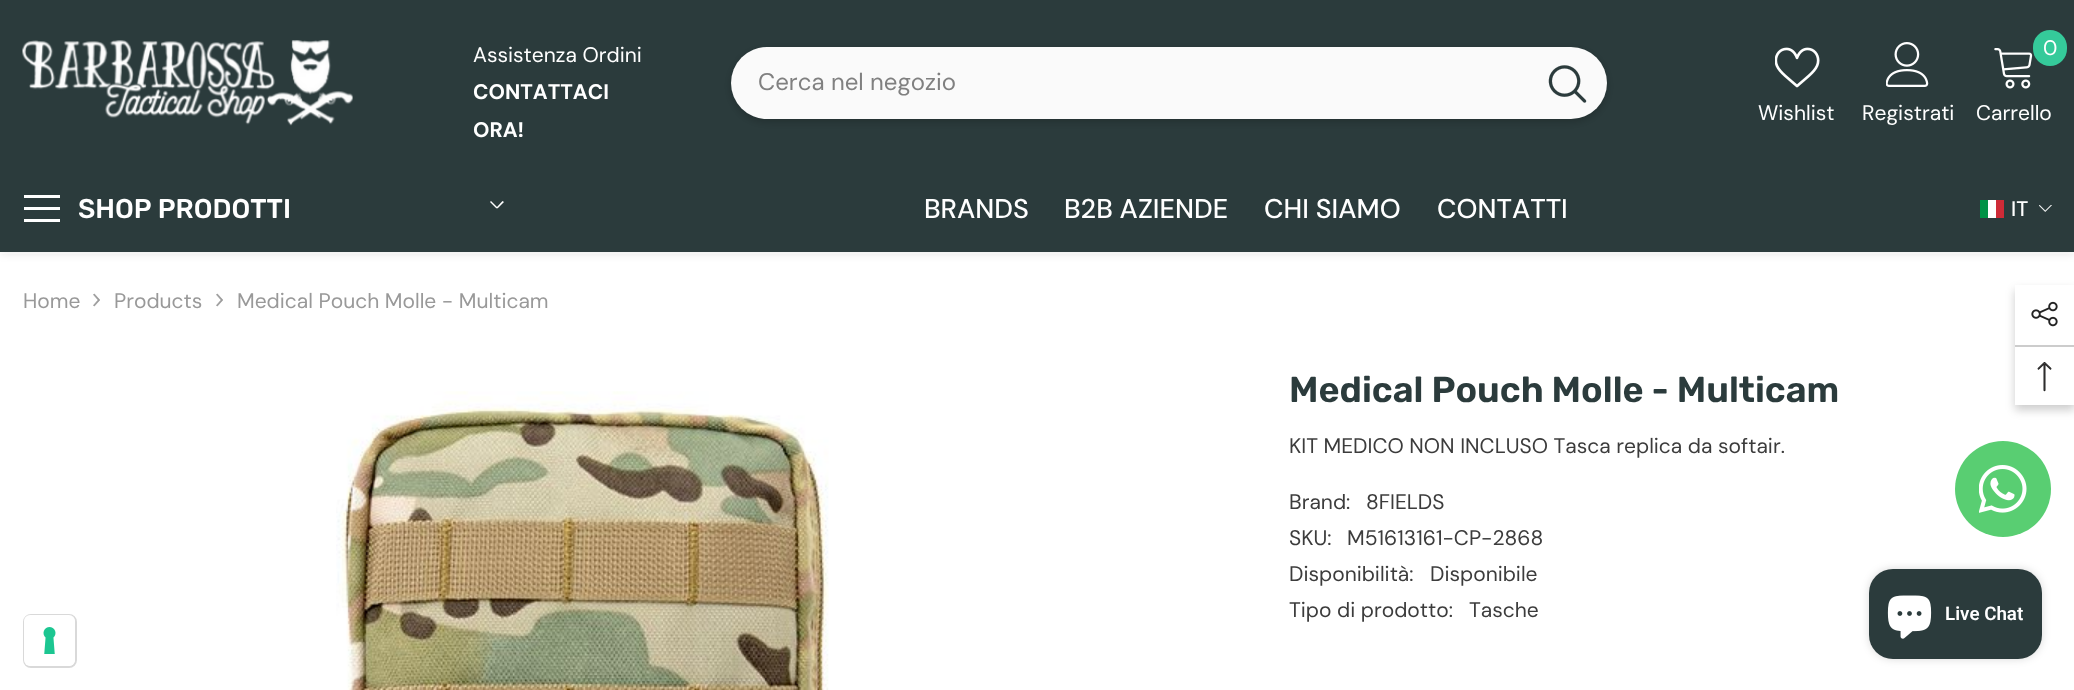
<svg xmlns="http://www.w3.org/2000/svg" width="2074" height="690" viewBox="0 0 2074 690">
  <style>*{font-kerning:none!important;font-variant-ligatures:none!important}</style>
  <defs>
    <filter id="blur1" x="-50%" y="-200%" width="200%" height="500%"><feGaussianBlur stdDeviation="4.5"/></filter>
    <filter id="blur2" x="-50%" y="-200%" width="200%" height="500%"><feGaussianBlur stdDeviation="4"/></filter>
    <clipPath id="clip1"><path d="M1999 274H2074V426H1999ZM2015 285H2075V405H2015Z" clip-rule="evenodd"/></clipPath>
    <filter id="blur3" x="-50%" y="-200%" width="200%" height="500%"><feGaussianBlur stdDeviation="5"/></filter>
  </defs>
  <rect width="100%" height="100%" fill="#ffffff"/>
  <rect x="0" y="167" width="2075" height="87" fill="#2b3b3c" fill-opacity="0.1" filter="url(#blur1)"/>
  <rect x="0" y="0" width="2074" height="252" fill="#2b3b3c"/>
  <image x="22" y="40" width="331" height="86" href="img1.png"/>
  <text x="473" y="62" font-family="DM Sans" font-size="21" fill="#ffffff">Assistenza Ordini</text>
  <text x="473" y="99" font-family="DM Sans" font-size="21" font-weight="bold" fill="#ffffff">CONTATTACI</text>
  <text x="473" y="137" font-family="DM Sans" font-size="21" font-weight="bold" fill="#ffffff">ORA!</text>
  <rect x="731" y="50" width="876" height="72" rx="36" fill="#000000" fill-opacity="0.2" filter="url(#blur2)"/>
  <rect x="731" y="47" width="876" height="72" rx="36" fill="#fafafa"/>
  <text x="758" y="90" font-family="DM Sans" font-size="24" fill="#808080">Cerca nel negozio</text>
  <image x="1548" y="65" width="39" height="38" href="img2.png"/>
  <image x="1994" y="48" width="39" height="41" href="img3.png"/>
  <rect x="2033" y="30" width="34" height="36" rx="17" fill="#35ca9a"/>
  <text x="2043" y="55" font-family="DM Sans" font-size="21" fill="#ffffff">0</text>
  <text x="1976" y="120" font-family="DM Sans" font-size="21" fill="#ffffff">Carrello</text>
  <image x="1775" y="47" width="45" height="41" href="img4.png"/>
  <text x="1758" y="120" font-family="DM Sans" font-size="21" fill="#ffffff">Wishlist</text>
  <image x="1886" y="42" width="43" height="45" href="img5.png"/>
  <text x="1862" y="120" font-family="DM Sans" font-size="21" fill="#ffffff">Registrati</text>
  <rect x="24" y="207" width="36" height="3" fill="#ffffff"/>
  <rect x="24" y="195" width="36" height="3" fill="#ffffff"/>
  <rect x="24" y="219" width="36" height="3" fill="#ffffff"/>
  <text x="78" y="218" font-family="Rubik" font-size="27" font-weight="500" fill="#ffffff">SHOP PRODOTTI</text>
  <path d="M504 202L497.5 208.5L496.5 207.5L502.5 201Z" fill="#ffffff"/>
  <path d="M491 201L497.5 207.5L496.5 208.5L490 202Z" fill="#ffffff"/>
  <text x="924" y="218" font-family="DM Sans" font-size="27" font-weight="500" fill="#ffffff">BRANDS</text>
  <text x="1064" y="218" font-family="DM Sans" font-size="27" font-weight="500" fill="#ffffff">B2B AZIENDE</text>
  <text x="1264" y="218" font-family="DM Sans" font-size="27" font-weight="500" fill="#ffffff">CHI SIAMO</text>
  <text x="1437" y="218" font-family="DM Sans" font-size="27" font-weight="500" fill="#ffffff">CONTATTI</text>
  <rect x="1988" y="200" width="8" height="18" fill="#ffffff"/>
  <rect x="1980" y="200" width="8" height="18" fill="#009246"/>
  <rect x="1996" y="200" width="8" height="18" fill="#ce2b37"/>
  <text x="2011" y="216" font-family="DM Sans" font-size="21" font-weight="500" fill="#ffffff">IT</text>
  <image x="2039" y="205" width="13" height="7" href="img6.png"/>
  <text x="23" y="308" font-family="DM Sans" font-size="21" fill="#999999">Home</text>
  <image x="93" y="293" width="7" height="14" href="img7.png"/>
  <text x="114" y="308" font-family="DM Sans" font-size="21" fill="#999999">Products</text>
  <image x="216" y="293" width="7" height="14" href="img7.png"/>
  <text x="237" y="308" font-family="DM Sans" font-size="21" fill="#999999">Medical Pouch Molle - Multicam</text>
  <image x="336" y="391" width="493" height="299" href="img8.png"/>
  <text x="1289" y="402" font-family="Rubik" font-size="36" font-weight="600" fill="#2b3b3c">Medical Pouch Molle - Multicam</text>
  <text x="1289" y="453" font-family="DM Sans" font-size="21" fill="#3c3c3c">KIT MEDICO NON INCLUSO Tasca replica da softair.</text>
  <text x="1289" y="509" font-family="DM Sans" font-size="21" fill="#3c3c3c">Brand:</text>
  <text x="1366" y="509" font-family="DM Sans" font-size="21" fill="#3c3c3c">8FIELDS</text>
  <text x="1289" y="545" font-family="DM Sans" font-size="21" fill="#3c3c3c">SKU:</text>
  <text x="1347" y="545" font-family="DM Sans" font-size="21" fill="#3c3c3c">M51613161-CP-2868</text>
  <text x="1289" y="581" font-family="DM Sans" font-size="21" fill="#3c3c3c">Disponibilità:</text>
  <text x="1430" y="581" font-family="DM Sans" font-size="21" fill="#3c3c3c">Disponibile</text>
  <text x="1289" y="617" font-family="DM Sans" font-size="21" fill="#3c3c3c">Tipo di prodotto:</text>
  <text x="1469" y="617" font-family="DM Sans" font-size="21" fill="#3c3c3c">Tasche</text>
  <g clip-path="url(#clip1)">
    <rect x="2015" y="290" width="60" height="120" fill="#000000" fill-opacity="0.2" filter="url(#blur3)"/>
  </g>
  <image x="2031" y="301" width="27" height="26" href="img9.png"/>
  <rect x="2015" y="345" width="59" height="2" fill="#cccccc"/>
  <image x="2037" y="362" width="15" height="30" href="img10.png"/>
  <circle cx="2003" cy="489" r="48" fill="#59ce72"/>
  <image x="1979" y="465" width="48" height="48" href="img11.png"/>
  <rect x="24" y="615" width="52" height="52" rx="7" fill="none" stroke="#d9d9d9" stroke-width="2"/>
  <rect x="24" y="615" width="51" height="51" rx="6" fill="#ffffff"/>
  <image x="43" y="627" width="13" height="27" href="img12.png"/>
  <rect x="1869" y="569" width="173" height="90" rx="24" fill="#000000" fill-opacity="0.15" filter="url(#blur2)"/>
  <rect x="1869" y="569" width="173" height="90" rx="24" fill="#2b3b3c"/>
  <image x="1887" y="595" width="45" height="44" href="img13.png"/>
  <text x="1945" y="620" font-family="Roboto" font-size="18.75" font-weight="600" fill="#ffffff">Live Chat</text>
</svg>
